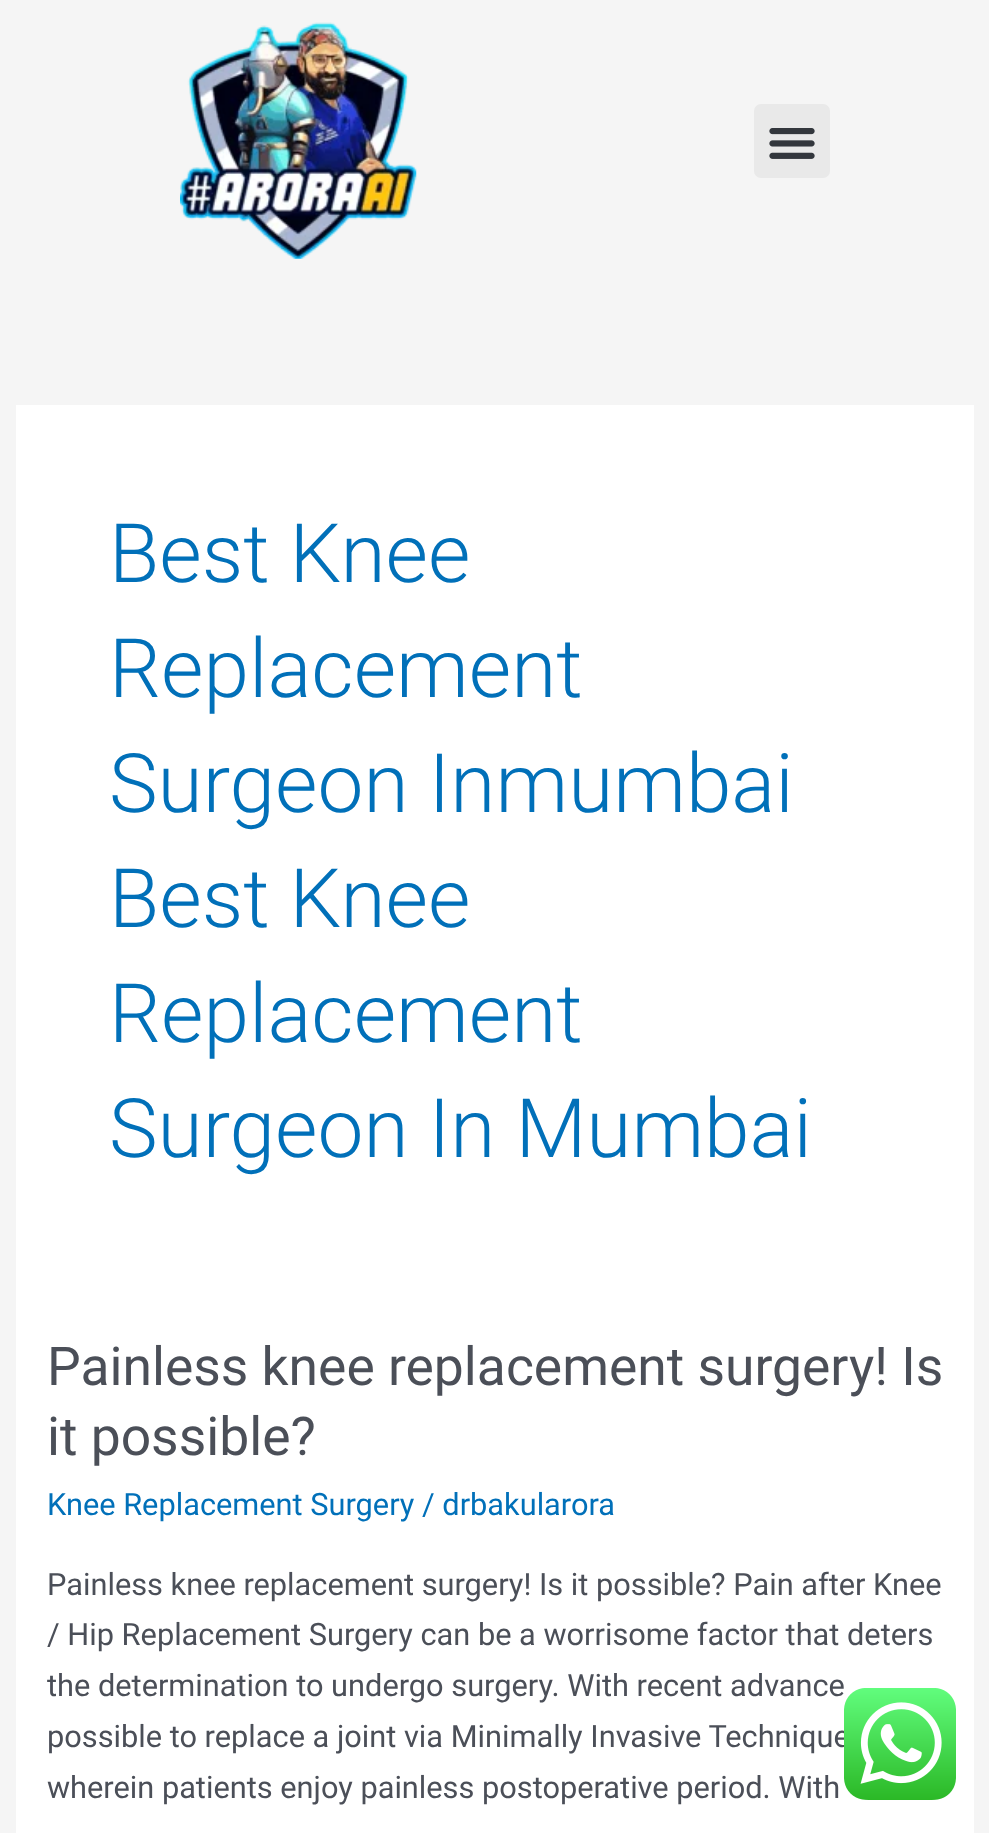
<svg xmlns="http://www.w3.org/2000/svg" width="989" height="1833" viewBox="0 0 989 1833">
  <rect width="100%" height="100%" fill="#f5f5f5"/>
  <image x="180" y="22" width="237" height="237" href="img1.png"/>
  <rect x="754" y="104" width="76" height="74" rx="7" fill="#e9e9e9"/>
  <image x="769" y="128" width="46" height="31" href="img2.png"/>
  <rect x="16" y="405" width="958" height="1428" fill="#ffffff"/>
  <text x="109" y="582" font-family="Roboto" font-size="82" font-weight="300" fill="#0170b9">Best Knee</text>
  <text x="109" y="697" font-family="Roboto" font-size="82" font-weight="300" fill="#0170b9">Replacement</text>
  <text x="109" y="812" font-family="Roboto" font-size="82" font-weight="300" fill="#0170b9">Surgeon Inmumbai</text>
  <text x="109" y="927" font-family="Roboto" font-size="82" font-weight="300" fill="#0170b9">Best Knee</text>
  <text x="109" y="1042" font-family="Roboto" font-size="82" font-weight="300" fill="#0170b9">Replacement</text>
  <text x="109" y="1157" font-family="Roboto" font-size="82" font-weight="300" fill="#0170b9">Surgeon In Mumbai</text>
  <text x="47" y="1385" font-family="Roboto" font-size="53.4" fill="#4b4f58">Painless knee replacement surgery! Is</text>
  <text x="47" y="1455" font-family="Roboto" font-size="53.4" fill="#4b4f58">it possible?</text>
  <text x="47" y="1515" font-family="Roboto" font-size="30.75" fill="#0170b9">Knee Replacement Surgery / drbakularora</text>
  <text x="47" y="1595" font-family="Roboto" font-size="30.75" fill="#4b4f58">Painless knee replacement surgery! Is it possible? Pain after Knee</text>
  <text x="47" y="1645" font-family="Roboto" font-size="30.75" fill="#4b4f58">/ Hip Replacement Surgery can be a worrisome factor that deters</text>
  <text x="47" y="1696" font-family="Roboto" font-size="30.75" fill="#4b4f58">the determination to undergo surgery. With recent advance</text>
  <text x="47" y="1747" font-family="Roboto" font-size="30.75" fill="#4b4f58">possible to replace a joint via Minimally Invasive Technique</text>
  <text x="47" y="1798" font-family="Roboto" font-size="30.75" fill="#4b4f58">wherein patients enjoy painless postoperative period. With</text>
  <image x="844" y="1688" width="112" height="112" href="img3.png"/>
</svg>
